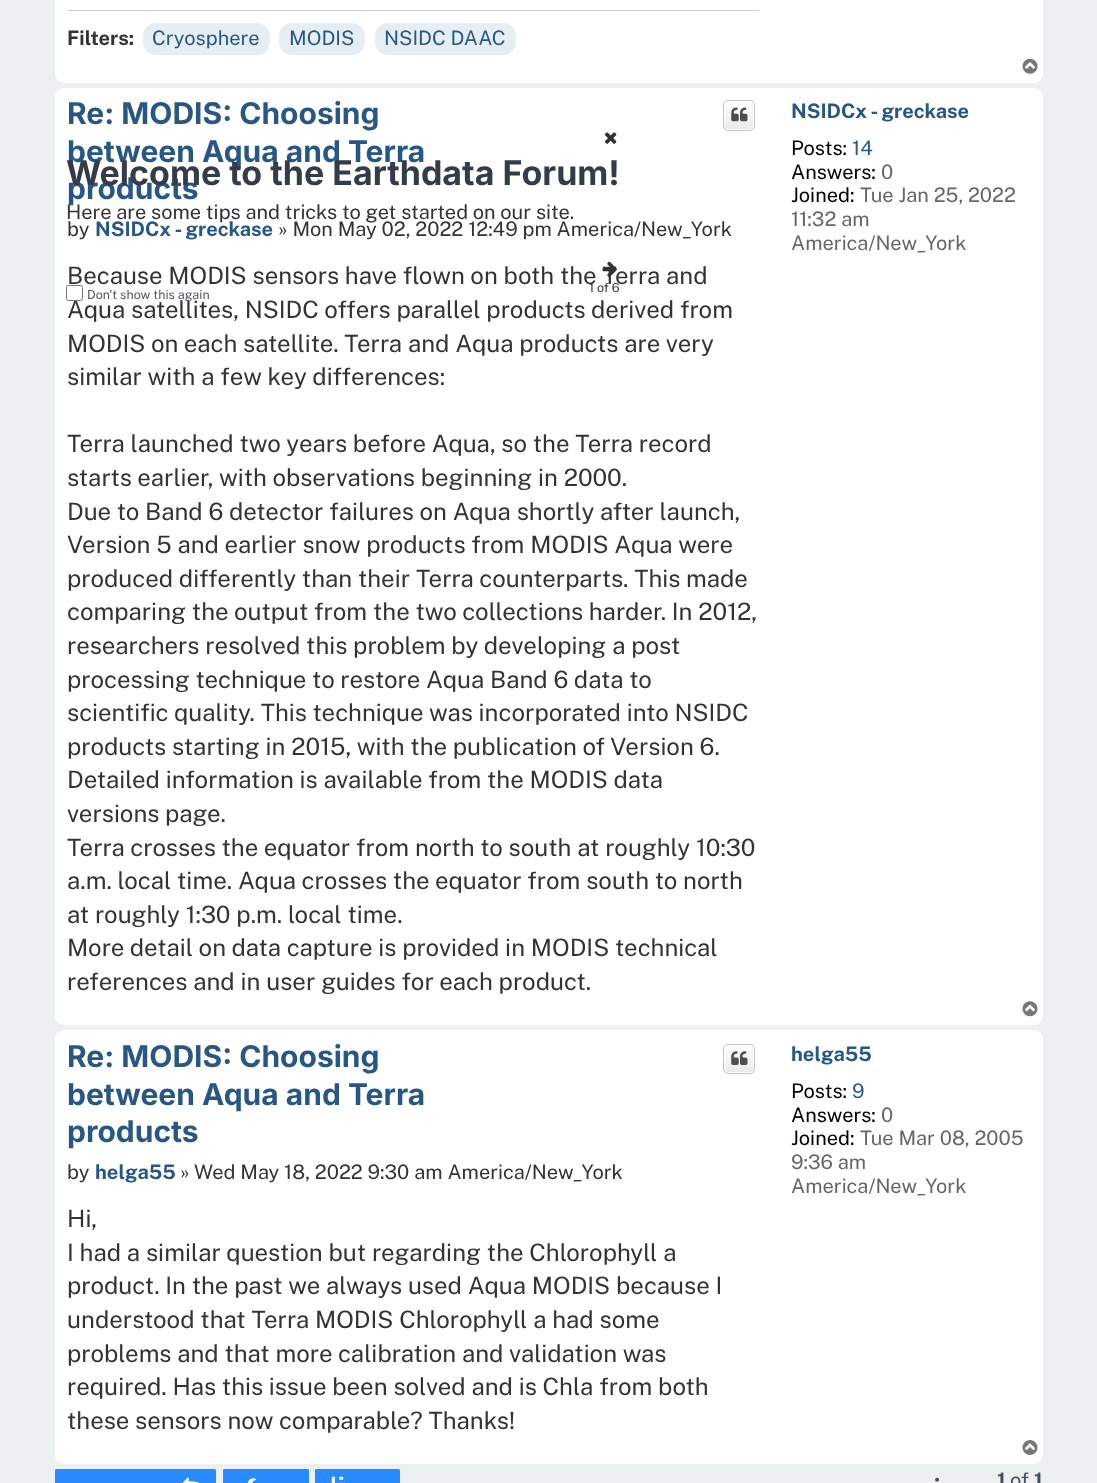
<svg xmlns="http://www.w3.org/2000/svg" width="1097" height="1483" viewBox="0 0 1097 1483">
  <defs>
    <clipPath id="clip1"><rect x="723" y="100" width="32" height="31" rx="5"/></clipPath>
    <linearGradient id="g1" gradientUnits="userSpaceOnUse" x1="739" y1="101" x2="739" y2="130"><stop offset="0" stop-color="#ffffff"/><stop offset="1" stop-color="#e9e9e9"/></linearGradient>
    <clipPath id="clip2"><rect x="723" y="1044" width="32" height="30" rx="5"/></clipPath>
    <linearGradient id="g2" gradientUnits="userSpaceOnUse" x1="739" y1="1045" x2="739" y2="1073"><stop offset="0" stop-color="#ffffff"/><stop offset="1" stop-color="#e9e9e9"/></linearGradient>
  </defs>
  <rect width="100%" height="100%" fill="#ecf0f1"/>
  <rect x="55" y="-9" width="988" height="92" rx="9" fill="#ffffff"/>
  <rect x="68" y="10" width="691" height="1" fill="#cccccc"/>
  <text x="67" y="45" font-family="Public Sans" font-size="20" font-weight="bold" fill="#333333">Filters:</text>
  <rect x="143" y="23" width="127" height="32" rx="13" fill="#e6eef4"/>
  <text x="152" y="45" font-family="Public Sans" font-size="20" fill="#285786">Cryosphere</text>
  <rect x="279" y="23" width="86" height="32" rx="13" fill="#e6eef4"/>
  <text x="289" y="45" font-family="Public Sans" font-size="20" fill="#285786">MODIS</text>
  <rect x="375" y="23" width="141" height="32" rx="13" fill="#e6eef4"/>
  <text x="384" y="45" font-family="Public Sans" font-size="20" fill="#285786">NSIDC DAAC</text>
  <image x="1022" y="58" width="16" height="16" href="img1.png"/>
  <rect x="55" y="88" width="988" height="937" rx="9" fill="#ffffff"/>
  <text x="67" y="124" font-family="Inter" font-size="30" font-weight="bold" fill="#285786">Re: MODIS: Choosing</text>
  <text x="67" y="162" font-family="Inter" font-size="30" font-weight="bold" fill="#285786">between Aqua and Terra</text>
  <text x="67" y="199" font-family="Inter" font-size="30" font-weight="bold" fill="#285786">products</text>
  <g clip-path="url(#clip1)">
    <rect x="723" y="101" width="32" height="29" fill="url(#g1)"/>
  </g>
  <rect x="724.5" y="101.5" width="29" height="28" rx="3.5" fill="none" stroke="#ffffff"/>
  <rect x="723.5" y="100.5" width="31" height="30" rx="4.5" fill="none" stroke="#c7c3bf"/>
  <image x="731" y="107" width="17" height="15" href="img2.png"/>
  <text x="67" y="236" font-family="Public Sans" font-size="20" fill="#333333">by</text>
  <text x="95" y="236" font-family="Public Sans" font-size="20" font-weight="bold" fill="#285786">NSIDCx - greckase</text>
  <text x="278" y="236" font-family="Public Sans" font-size="20" fill="#333333">» Mon May 02, 2022 12:49 pm America/New_York</text>
  <text x="67" y="284" font-family="Public Sans" font-size="24" fill="#333333">Because MODIS sensors have flown on both the Terra and</text>
  <text x="67" y="318" font-family="Public Sans" font-size="24" fill="#333333">Aqua satellites, NSIDC offers parallel products derived from</text>
  <text x="67" y="352" font-family="Public Sans" font-size="24" fill="#333333">MODIS on each satellite. Terra and Aqua products are very</text>
  <text x="67" y="385" font-family="Public Sans" font-size="24" fill="#333333">similar with a few key differences:</text>
  <text x="67" y="452" font-family="Public Sans" font-size="24" fill="#333333">Terra launched two years before Aqua, so the Terra record</text>
  <text x="67" y="486" font-family="Public Sans" font-size="24" fill="#333333">starts earlier, with observations beginning in 2000.</text>
  <text x="67" y="520" font-family="Public Sans" font-size="24" fill="#333333">Due to Band 6 detector failures on Aqua shortly after launch,</text>
  <text x="67" y="553" font-family="Public Sans" font-size="24" fill="#333333">Version 5 and earlier snow products from MODIS Aqua were</text>
  <text x="67" y="587" font-family="Public Sans" font-size="24" fill="#333333">produced differently than their Terra counterparts. This made</text>
  <text x="67" y="620" font-family="Public Sans" font-size="24" fill="#333333">comparing the output from the two collections harder. In 2012,</text>
  <text x="67" y="654" font-family="Public Sans" font-size="24" fill="#333333">researchers resolved this problem by developing a post</text>
  <text x="67" y="688" font-family="Public Sans" font-size="24" fill="#333333">processing technique to restore Aqua Band 6 data to</text>
  <text x="67" y="721" font-family="Public Sans" font-size="24" fill="#333333">scientific quality. This technique was incorporated into NSIDC</text>
  <text x="67" y="755" font-family="Public Sans" font-size="24" fill="#333333">products starting in 2015, with the publication of Version 6.</text>
  <text x="67" y="788" font-family="Public Sans" font-size="24" fill="#333333">Detailed information is available from the MODIS data</text>
  <text x="67" y="822" font-family="Public Sans" font-size="24" fill="#333333">versions page.</text>
  <text x="67" y="856" font-family="Public Sans" font-size="24" fill="#333333">Terra crosses the equator from north to south at roughly 10:30</text>
  <text x="67" y="889" font-family="Public Sans" font-size="24" fill="#333333">a.m. local time. Aqua crosses the equator from south to north</text>
  <text x="67" y="923" font-family="Public Sans" font-size="24" fill="#333333">at roughly 1:30 p.m. local time.</text>
  <text x="67" y="956" font-family="Public Sans" font-size="24" fill="#333333">More detail on data capture is provided in MODIS technical</text>
  <text x="67" y="990" font-family="Public Sans" font-size="24" fill="#333333">references and in user guides for each product.</text>
  <text x="791" y="118" font-family="Public Sans" font-size="20" font-weight="bold" fill="#285786">NSIDCx - greckase</text>
  <text x="791" y="155" font-family="Public Sans" font-size="20" fill="#000000">Posts:</text>
  <text x="852" y="155" font-family="Public Sans" font-size="20" fill="#285786">14</text>
  <text x="791" y="179" font-family="Public Sans" font-size="20" fill="#000000">Answers:</text>
  <text x="881" y="179" font-family="Public Sans" font-size="20" fill="#666666">0</text>
  <text x="791" y="202" font-family="Public Sans" font-size="20" fill="#000000">Joined:</text>
  <text x="860" y="202" font-family="Public Sans" font-size="20" fill="#666666">Tue Jan 25, 2022</text>
  <text x="791" y="226" font-family="Public Sans" font-size="20" fill="#666666">11:32 am</text>
  <text x="791" y="250" font-family="Public Sans" font-size="20" fill="#666666">America/New_York</text>
  <image x="1022" y="1001" width="16" height="16" href="img3.png"/>
  <rect x="55" y="1030" width="988" height="434" rx="9" fill="#ffffff"/>
  <text x="67" y="1067" font-family="Inter" font-size="30" font-weight="bold" fill="#285786">Re: MODIS: Choosing</text>
  <text x="67" y="1105" font-family="Inter" font-size="30" font-weight="bold" fill="#285786">between Aqua and Terra</text>
  <text x="67" y="1142" font-family="Inter" font-size="30" font-weight="bold" fill="#285786">products</text>
  <g clip-path="url(#clip2)">
    <rect x="723" y="1045" width="32" height="28" fill="url(#g2)"/>
  </g>
  <rect x="724.5" y="1045.5" width="29" height="27" rx="3.5" fill="none" stroke="#ffffff"/>
  <rect x="723.5" y="1044.5" width="31" height="29" rx="4.5" fill="none" stroke="#c7c3bf"/>
  <image x="731" y="1051" width="17" height="14" href="img4.png"/>
  <text x="67" y="1179" font-family="Public Sans" font-size="20" fill="#333333">by</text>
  <text x="95" y="1179" font-family="Public Sans" font-size="20" font-weight="bold" fill="#285786">helga55</text>
  <text x="180" y="1179" font-family="Public Sans" font-size="20" fill="#333333">» Wed May 18, 2022 9:30 am America/New_York</text>
  <text x="67" y="1227" font-family="Public Sans" font-size="24" fill="#333333">Hi,</text>
  <text x="67" y="1261" font-family="Public Sans" font-size="24" fill="#333333">I had a similar question but regarding the Chlorophyll a</text>
  <text x="67" y="1294" font-family="Public Sans" font-size="24" fill="#333333">product. In the past we always used Aqua MODIS because I</text>
  <text x="67" y="1328" font-family="Public Sans" font-size="24" fill="#333333">understood that Terra MODIS Chlorophyll a had some</text>
  <text x="67" y="1362" font-family="Public Sans" font-size="24" fill="#333333">problems and that more calibration and validation was</text>
  <text x="67" y="1395" font-family="Public Sans" font-size="24" fill="#333333">required. Has this issue been solved and is Chla from both</text>
  <text x="67" y="1429" font-family="Public Sans" font-size="24" fill="#333333">these sensors now comparable? Thanks!</text>
  <text x="791" y="1061" font-family="Public Sans" font-size="20" font-weight="bold" fill="#285786">helga55</text>
  <text x="791" y="1098" font-family="Public Sans" font-size="20" fill="#000000">Posts:</text>
  <text x="852" y="1098" font-family="Public Sans" font-size="20" fill="#285786">9</text>
  <text x="791" y="1122" font-family="Public Sans" font-size="20" fill="#000000">Answers:</text>
  <text x="881" y="1122" font-family="Public Sans" font-size="20" fill="#666666">0</text>
  <text x="791" y="1145" font-family="Public Sans" font-size="20" fill="#000000">Joined:</text>
  <text x="860" y="1145" font-family="Public Sans" font-size="20" fill="#666666">Tue Mar 08, 2005</text>
  <text x="791" y="1169" font-family="Public Sans" font-size="20" fill="#666666">9:36 am</text>
  <text x="791" y="1193" font-family="Public Sans" font-size="20" fill="#666666">America/New_York</text>
  <image x="1022" y="1440" width="16" height="15" href="img5.png"/>
  <rect x="55.5" y="1469.5" width="160" height="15" rx="0.5" fill="#288bff" stroke="#288bff"/>
  <image x="182" y="1477" width="17" height="6" href="img6.png"/>
  <rect x="223.5" y="1469.5" width="85" height="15" rx="0.5" fill="#288bff" stroke="#288bff"/>
  <image x="247" y="1478" width="9" height="5" href="img7.png"/>
  <rect x="315.5" y="1469.5" width="84" height="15" rx="0.5" fill="#288bff" stroke="#288bff"/>
  <image x="331" y="1476" width="15" height="7" href="img8.png"/>
  <text x="934" y="1487" font-family="Public Sans" font-size="20" fill="#454e5f">•</text>
  <text x="997" y="1487" font-family="Public Sans" font-size="20" font-weight="bold" fill="#454e5f">1</text>
  <text x="1010" y="1487" font-family="Public Sans" font-size="20" fill="#454e5f">of</text>
  <text x="1034" y="1487" font-family="Public Sans" font-size="20" font-weight="bold" fill="#454e5f">1</text>
  <image x="604" y="132" width="13" height="12" href="img9.png"/>
  <text x="66" y="185" font-family="Inter" font-size="34" font-weight="bold" fill="#353c49">Welcome to the Earthdata Forum!</text>
  <text x="66" y="219" font-family="Public Sans" font-size="20" fill="#333333">Here are some tips and tricks to get started on our site.</text>
  <image x="602" y="261" width="15" height="16" href="img10.png"/>
  <text x="589" y="292" font-family="Public Sans" font-size="12.5" fill="#333333">1 of 6</text>
  <rect x="66.5" y="285.5" width="16" height="15" rx="2" fill="#ffffff" stroke="#767676"/>
  <text x="87" y="299" font-family="Public Sans" font-size="12.5" fill="#50596c">Don't show this again</text>
</svg>
